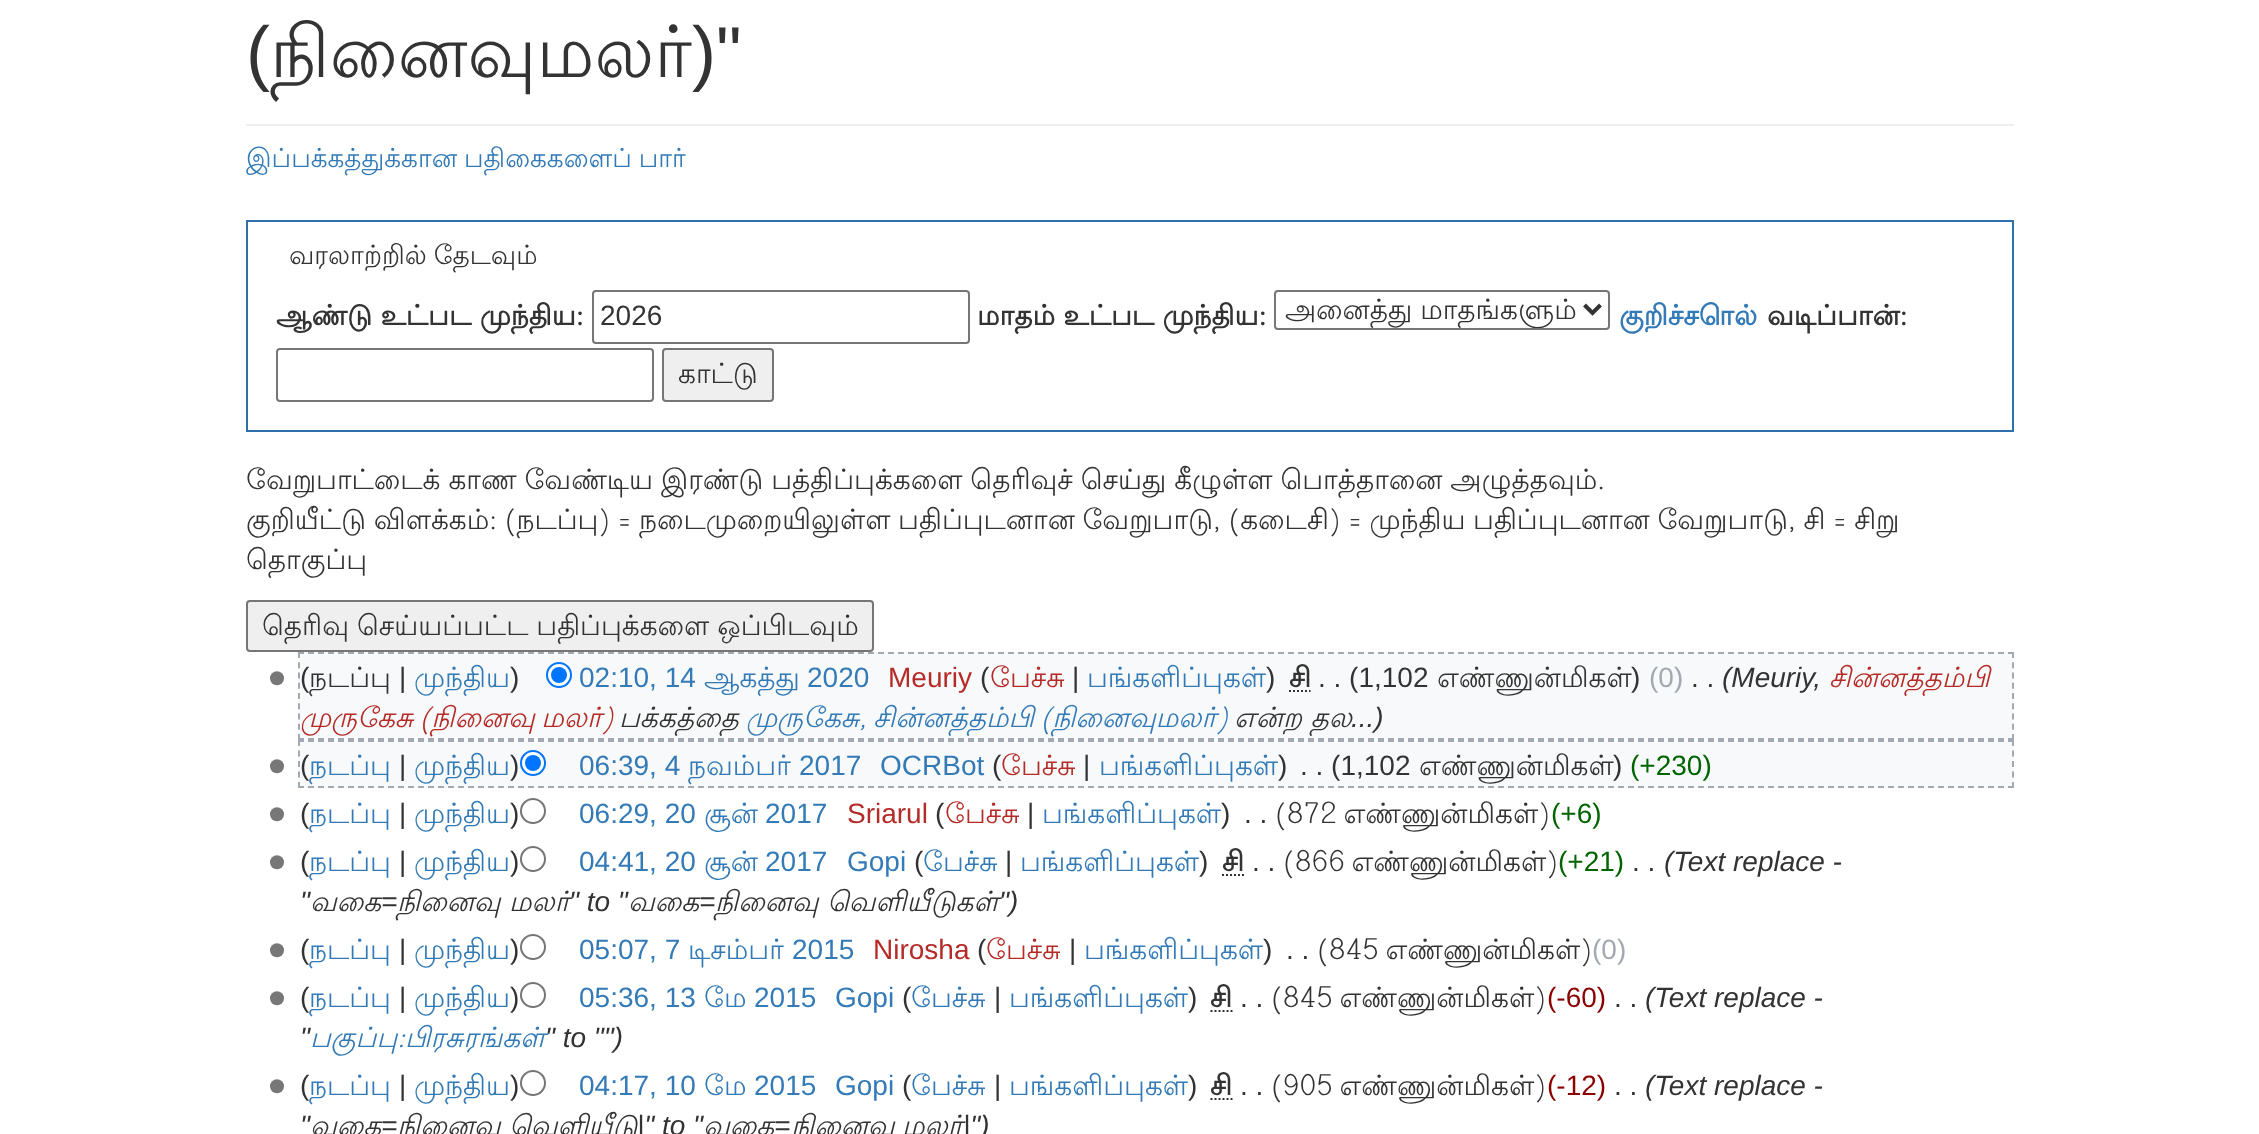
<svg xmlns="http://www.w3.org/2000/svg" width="2259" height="1134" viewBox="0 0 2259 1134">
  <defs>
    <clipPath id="clip1"><rect x="1284" y="292" width="292" height="36"/></clipPath>
  </defs>
  <rect width="100%" height="100%" fill="#ffffff"/>
  <rect x="246" y="124" width="1768" height="2" fill="#eeeeee"/>
  <text x="246" y="77" font-family="Liberation Sans" font-size="72" fill="#333333">(</text>
  <text x="270" y="77" font-family="Lohit Tamil" font-size="72" fill="#333333">நினைவுமலர்</text>
  <text x="692" y="77" font-family="Liberation Sans" font-size="72" fill="#333333">)"</text>
  <text x="246" y="167" word-spacing="-1" font-family="Lohit Tamil" font-size="26.3" fill="#337ab7">இப்பக்கத்துக்கான பதிகைகளைப் பார்</text>
  <rect x="247" y="221" width="1766" height="210" fill="none" stroke="#2f6fab" stroke-width="2"/>
  <text x="289" y="264" word-spacing="-1" font-family="Lohit Tamil" font-size="26.5" fill="#333333">வரலாற்றில் தேடவும்</text>
  <text x="276" y="325" font-family="Lohit Tamil" font-size="28" font-weight="bold" fill="#333333">ஆண்டு உட்பட முந்திய:</text>
  <rect x="593" y="291" width="376" height="52" rx="3" fill="none" stroke="#767676" stroke-width="2"/>
  <text x="600" y="325" font-family="Liberation Sans" font-size="28" fill="#333333">2026</text>
  <text x="977" y="325" font-family="Lohit Tamil" font-size="28" font-weight="bold" fill="#333333">மாதம் உட்பட முந்திய:</text>
  <rect x="1275" y="291" width="334" height="38" rx="3" fill="none" stroke="#767676" stroke-width="2"/>
  <path d="M1584.5 305L1592.5 313L1600.5 305" fill="none" stroke="#333333" stroke-width="4"/>
  <g clip-path="url(#clip1)">
    <text x="1285" y="319" word-spacing="-0.5" font-family="Lohit Tamil" font-size="28" fill="#333333">அனைத்து மாதங்களும்</text>
  </g>
  <text x="1619" y="325" font-family="Lohit Tamil" font-size="28" font-weight="bold" fill="#337ab7">குறிச்சொல்</text>
  <text x="1767" y="325" font-family="Lohit Tamil" font-size="28" font-weight="bold" fill="#333333">வடிப்பான்:</text>
  <rect x="277" y="349" width="376" height="52" rx="3" fill="none" stroke="#767676" stroke-width="2"/>
  <rect x="663" y="349" width="110" height="52" rx="3" fill="#efefef" stroke="#767676" stroke-width="2"/>
  <text x="678" y="383" font-family="Lohit Tamil" font-size="28" fill="#333333">காட்டு</text>
  <text x="246" y="489" word-spacing="-0.5" font-family="Lohit Tamil" font-size="28" fill="#333333">வேறுபாட்டைக் காண வேண்டிய இரண்டு பத்திப்புக்களை தெரிவுச் செய்து கீழுள்ள பொத்தானை அழுத்தவும்.</text>
  <text x="246" y="529" word-spacing="-0.7" font-family="Lohit Tamil" font-size="28" fill="#333333">குறியீட்டு விளக்கம்: (நடப்பு) = நடைமுறையிலுள்ள பதிப்புடனான வேறுபாடு, (கடைசி) = முந்திய பதிப்புடனான வேறுபாடு, சி = சிறு</text>
  <text x="246" y="569" font-family="Lohit Tamil" font-size="28" fill="#333333">தொகுப்பு</text>
  <rect x="247" y="601" width="626" height="50" rx="3" fill="#efefef" stroke="#767676" stroke-width="2"/>
  <text x="262" y="635" word-spacing="-0.5" font-family="Lohit Tamil" font-size="28" fill="#333333">தெரிவு செய்யப்பட்ட பதிப்புக்களை ஒப்பிடவும்</text>
  <rect x="298" y="652" width="1716" height="136" fill="#f8f9fa"/>
  <path d="M298 653H2014" fill="none" stroke="#a2a9b1" stroke-width="2" stroke-dasharray="6 4"/>
  <path d="M2013 652V740" fill="none" stroke="#a2a9b1" stroke-width="2" stroke-dasharray="6 4.24"/>
  <path d="M298 739H2014" fill="none" stroke="#a2a9b1" stroke-width="2" stroke-dasharray="6 4"/>
  <path d="M299 652V740" fill="none" stroke="#a2a9b1" stroke-width="2" stroke-dasharray="6 4.24"/>
  <image x="270" y="671" width="14" height="15" href="img1.png"/>
  <text x="300" y="687" font-family="Liberation Sans" font-size="28" fill="#333333">(</text>
  <text x="309" y="687" font-family="Lohit Tamil" font-size="28" fill="#333333">நடப்பு</text>
  <text x="399" y="687" font-family="Liberation Sans" font-size="28" fill="#333333">|</text>
  <text x="414" y="687" font-family="Lohit Tamil" font-size="28" fill="#337ab7">முந்திய</text>
  <text x="510" y="687" font-family="Liberation Sans" font-size="28" fill="#333333">)</text>
  <circle cx="559" cy="675" r="12" fill="#ffffff" stroke="#0075ff" stroke-width="2"/>
  <circle cx="559" cy="675" r="8" fill="#0075ff"/>
  <text x="579" y="687" font-family="Liberation Sans" font-size="28" fill="#337ab7">02:10, 14</text>
  <text x="704" y="687" font-family="Lohit Tamil" font-size="28" fill="#337ab7">ஆகத்து</text>
  <text x="807" y="687" font-family="Liberation Sans" font-size="28" fill="#337ab7">2020</text>
  <text x="888" y="687" font-family="Liberation Sans" font-size="28" fill="#b52b27">Meuriy</text>
  <text x="980" y="687" font-family="Liberation Sans" font-size="28" fill="#333333">(</text>
  <text x="990" y="687" font-family="Lohit Tamil" font-size="28" fill="#b52b27">பேச்சு</text>
  <text x="1072" y="687" font-family="Liberation Sans" font-size="28" fill="#333333">|</text>
  <text x="1087" y="687" font-family="Lohit Tamil" font-size="28" fill="#337ab7">பங்களிப்புகள்</text>
  <text x="1266" y="687" font-family="Liberation Sans" font-size="28" fill="#333333">)</text>
  <text x="1289" y="687" font-family="Lohit Tamil" font-size="28" font-weight="bold" fill="#333333">சி</text>
  <path d="M1289 691H1310.5" fill="none" stroke="#333333" stroke-width="2" stroke-dasharray="2 2"/>
  <text x="1318" y="687" font-family="Liberation Sans" font-size="28" fill="#333333">. . (1,102</text>
  <text x="1437" y="687" font-family="Lohit Tamil" font-size="28" fill="#333333">எண்ணுன்மிகள்</text>
  <text x="1631" y="687" font-family="Liberation Sans" font-size="28" fill="#333333">)</text>
  <text x="1649" y="687" font-family="Liberation Sans" font-size="28" fill="#a2a9b1">(0)</text>
  <text x="1691" y="687" font-family="Liberation Sans" font-size="28" fill="#333333">. .</text>
  <text x="1722" y="687" font-family="Liberation Sans" font-size="28" font-style="italic" fill="#333333">(Meuriy,</text>
  <text x="1829" y="687" font-family="Lohit Tamil" font-size="28" font-style="italic" fill="#b52b27">சின்னத்தம்பி</text>
  <text x="300" y="727" word-spacing="-2" font-family="Lohit Tamil" font-size="28" font-style="italic" fill="#b52b27">முருகேசு (நினைவு மலர்)</text>
  <text x="619" y="727" font-family="Lohit Tamil" font-size="28" font-style="italic" fill="#333333">பக்கத்தை</text>
  <text x="746" y="727" word-spacing="-2" font-family="Lohit Tamil" font-size="28" font-style="italic" fill="#337ab7">முருகேசு, சின்னத்தம்பி (நினைவுமலர்)</text>
  <text x="1234" y="727" font-family="Lohit Tamil" font-size="28" font-style="italic" fill="#333333">என்ற தல</text>
  <text x="1351" y="727" font-family="Liberation Sans" font-size="28" font-style="italic" fill="#333333">...)</text>
  <path d="M298 741H2014" fill="none" stroke="#a2a9b1" stroke-width="2" stroke-dasharray="6 4"/>
  <path d="M2013 740V788" fill="none" stroke="#a2a9b1" stroke-width="2" stroke-dasharray="6 4.5"/>
  <path d="M298 787H2014" fill="none" stroke="#a2a9b1" stroke-width="2" stroke-dasharray="6 4"/>
  <path d="M299 740V788" fill="none" stroke="#a2a9b1" stroke-width="2" stroke-dasharray="6 4.5"/>
  <image x="270" y="759" width="14" height="15" href="img1.png"/>
  <text x="300" y="775" font-family="Liberation Sans" font-size="28" fill="#333333">(</text>
  <text x="309" y="775" font-family="Lohit Tamil" font-size="28" fill="#337ab7">நடப்பு</text>
  <text x="399" y="775" font-family="Liberation Sans" font-size="28" fill="#333333">|</text>
  <text x="414" y="775" font-family="Lohit Tamil" font-size="28" fill="#337ab7">முந்திய</text>
  <text x="510" y="775" font-family="Liberation Sans" font-size="28" fill="#333333">)</text>
  <circle cx="533" cy="763" r="12" fill="#ffffff" stroke="#0075ff" stroke-width="2"/>
  <circle cx="533" cy="763" r="8" fill="#0075ff"/>
  <text x="579" y="775" font-family="Liberation Sans" font-size="28" fill="#337ab7">06:39, 4</text>
  <text x="688" y="775" font-family="Lohit Tamil" font-size="28" fill="#337ab7">நவம்பர்</text>
  <text x="799" y="775" font-family="Liberation Sans" font-size="28" fill="#337ab7">2017</text>
  <text x="880" y="775" font-family="Liberation Sans" font-size="28" fill="#337ab7">OCRBot</text>
  <text x="992" y="775" font-family="Liberation Sans" font-size="28" fill="#333333">(</text>
  <text x="1001" y="775" font-family="Lohit Tamil" font-size="28" fill="#b52b27">பேச்சு</text>
  <text x="1083" y="775" font-family="Liberation Sans" font-size="28" fill="#333333">|</text>
  <text x="1099" y="775" font-family="Lohit Tamil" font-size="28" fill="#337ab7">பங்களிப்புகள்</text>
  <text x="1278" y="775" font-family="Liberation Sans" font-size="28" fill="#333333">)</text>
  <text x="1300" y="775" font-family="Liberation Sans" font-size="28" fill="#333333">. . (1,102</text>
  <text x="1419" y="775" font-family="Lohit Tamil" font-size="28" fill="#333333">எண்ணுன்மிகள்</text>
  <text x="1613" y="775" font-family="Liberation Sans" font-size="28" fill="#333333">)</text>
  <text x="1630" y="775" font-family="Liberation Sans" font-size="28" fill="#006400">(+230)</text>
  <image x="270" y="807" width="14" height="15" href="img1.png"/>
  <text x="300" y="823" font-family="Liberation Sans" font-size="28" fill="#333333">(</text>
  <text x="309" y="823" font-family="Lohit Tamil" font-size="28" fill="#337ab7">நடப்பு</text>
  <text x="399" y="823" font-family="Liberation Sans" font-size="28" fill="#333333">|</text>
  <text x="414" y="823" font-family="Lohit Tamil" font-size="28" fill="#337ab7">முந்திய</text>
  <text x="510" y="823" font-family="Liberation Sans" font-size="28" fill="#333333">)</text>
  <circle cx="533" cy="811" r="12" fill="none" stroke="#767676" stroke-width="2"/>
  <text x="579" y="823" font-family="Liberation Sans" font-size="28" fill="#337ab7">06:29, 20</text>
  <text x="704" y="823" font-family="Lohit Tamil" font-size="28" fill="#337ab7">சூன்</text>
  <text x="765" y="823" font-family="Liberation Sans" font-size="28" fill="#337ab7">2017</text>
  <text x="847" y="823" font-family="Liberation Sans" font-size="28" fill="#b52b27">Sriarul</text>
  <text x="935" y="823" font-family="Liberation Sans" font-size="28" fill="#333333">(</text>
  <text x="945" y="823" font-family="Lohit Tamil" font-size="28" fill="#b52b27">பேச்சு</text>
  <text x="1027" y="823" font-family="Liberation Sans" font-size="28" fill="#333333">|</text>
  <text x="1042" y="823" font-family="Lohit Tamil" font-size="28" fill="#337ab7">பங்களிப்புகள்</text>
  <text x="1221" y="823" font-family="Liberation Sans" font-size="28" fill="#333333">)</text>
  <text x="1244" y="823" font-family="Liberation Sans" font-size="28" fill="#333333">. .</text>
  <text x="1275" y="823" word-spacing="-2" font-family="Lohit Tamil" font-size="28" fill="#333333">(872 எண்ணுன்மிகள்)</text>
  <text x="1551" y="823" font-family="Liberation Sans" font-size="28" fill="#006400">(+6)</text>
  <image x="270" y="855" width="14" height="15" href="img1.png"/>
  <text x="300" y="871" font-family="Liberation Sans" font-size="28" fill="#333333">(</text>
  <text x="309" y="871" font-family="Lohit Tamil" font-size="28" fill="#337ab7">நடப்பு</text>
  <text x="399" y="871" font-family="Liberation Sans" font-size="28" fill="#333333">|</text>
  <text x="414" y="871" font-family="Lohit Tamil" font-size="28" fill="#337ab7">முந்திய</text>
  <text x="510" y="871" font-family="Liberation Sans" font-size="28" fill="#333333">)</text>
  <circle cx="533" cy="859" r="12" fill="none" stroke="#767676" stroke-width="2"/>
  <text x="579" y="871" font-family="Liberation Sans" font-size="28" fill="#337ab7">04:41, 20</text>
  <text x="704" y="871" font-family="Lohit Tamil" font-size="28" fill="#337ab7">சூன்</text>
  <text x="765" y="871" font-family="Liberation Sans" font-size="28" fill="#337ab7">2017</text>
  <text x="847" y="871" font-family="Liberation Sans" font-size="28" fill="#337ab7">Gopi</text>
  <text x="914" y="871" font-family="Liberation Sans" font-size="28" fill="#333333">(</text>
  <text x="923" y="871" font-family="Lohit Tamil" font-size="28" fill="#337ab7">பேச்சு</text>
  <text x="1005" y="871" font-family="Liberation Sans" font-size="28" fill="#333333">|</text>
  <text x="1020" y="871" font-family="Lohit Tamil" font-size="28" fill="#337ab7">பங்களிப்புகள்</text>
  <text x="1199" y="871" font-family="Liberation Sans" font-size="28" fill="#333333">)</text>
  <text x="1222" y="871" font-family="Lohit Tamil" font-size="28" font-weight="bold" fill="#333333">சி</text>
  <path d="M1222 875H1244" fill="none" stroke="#333333" stroke-width="2" stroke-dasharray="2 2"/>
  <text x="1252" y="871" font-family="Liberation Sans" font-size="28" fill="#333333">. .</text>
  <text x="1283" y="871" word-spacing="-2" font-family="Lohit Tamil" font-size="28" fill="#333333">(866 எண்ணுன்மிகள்)</text>
  <text x="1558" y="871" font-family="Liberation Sans" font-size="28" fill="#006400">(+21)</text>
  <text x="1632" y="871" font-family="Liberation Sans" font-size="28" fill="#333333">. .</text>
  <text x="1664" y="871" font-family="Liberation Sans" font-size="28" font-style="italic" fill="#333333">(Text replace -</text>
  <text x="300" y="911" font-family="Liberation Sans" font-size="28" font-style="italic" fill="#333333">"</text>
  <text x="310" y="911" font-family="Lohit Tamil" font-size="28" font-style="italic" fill="#333333">வகை</text>
  <text x="381" y="911" font-family="Liberation Sans" font-size="28" font-style="italic" fill="#333333">=</text>
  <text x="397" y="911" font-family="Lohit Tamil" font-size="28" font-style="italic" fill="#333333">நினைவு</text>
  <text x="509" y="911" font-family="Lohit Tamil" font-size="28" font-style="italic" fill="#333333">மலர்</text>
  <text x="569" y="911" font-family="Liberation Sans" font-size="28" font-style="italic" fill="#333333">" to "</text>
  <text x="628" y="911" font-family="Lohit Tamil" font-size="28" font-style="italic" fill="#333333">வகை</text>
  <text x="699" y="911" font-family="Liberation Sans" font-size="28" font-style="italic" fill="#333333">=</text>
  <text x="715" y="911" font-family="Lohit Tamil" font-size="28" font-style="italic" fill="#333333">நினைவு</text>
  <text x="827" y="911" font-family="Lohit Tamil" font-size="28" font-style="italic" fill="#333333">வெளியீடுகள்</text>
  <text x="999" y="911" font-family="Liberation Sans" font-size="28" font-style="italic" fill="#333333">")</text>
  <image x="270" y="943" width="14" height="15" href="img1.png"/>
  <text x="300" y="959" font-family="Liberation Sans" font-size="28" fill="#333333">(</text>
  <text x="309" y="959" font-family="Lohit Tamil" font-size="28" fill="#337ab7">நடப்பு</text>
  <text x="399" y="959" font-family="Liberation Sans" font-size="28" fill="#333333">|</text>
  <text x="414" y="959" font-family="Lohit Tamil" font-size="28" fill="#337ab7">முந்திய</text>
  <text x="510" y="959" font-family="Liberation Sans" font-size="28" fill="#333333">)</text>
  <circle cx="533" cy="947" r="12" fill="none" stroke="#767676" stroke-width="2"/>
  <text x="579" y="959" font-family="Liberation Sans" font-size="28" fill="#337ab7">05:07, 7</text>
  <text x="688" y="959" font-family="Lohit Tamil" font-size="28" fill="#337ab7">டிசம்பர்</text>
  <text x="792" y="959" font-family="Liberation Sans" font-size="28" fill="#337ab7">2015</text>
  <text x="873" y="959" font-family="Liberation Sans" font-size="28" fill="#b52b27">Nirosha</text>
  <text x="977" y="959" font-family="Liberation Sans" font-size="28" fill="#333333">(</text>
  <text x="986" y="959" font-family="Lohit Tamil" font-size="28" fill="#b52b27">பேச்சு</text>
  <text x="1069" y="959" font-family="Liberation Sans" font-size="28" fill="#333333">|</text>
  <text x="1084" y="959" font-family="Lohit Tamil" font-size="28" fill="#337ab7">பங்களிப்புகள்</text>
  <text x="1263" y="959" font-family="Liberation Sans" font-size="28" fill="#333333">)</text>
  <text x="1286" y="959" font-family="Liberation Sans" font-size="28" fill="#333333">. .</text>
  <text x="1317" y="959" word-spacing="-2" font-family="Lohit Tamil" font-size="28" fill="#333333">(845 எண்ணுன்மிகள்)</text>
  <text x="1592" y="959" font-family="Liberation Sans" font-size="28" fill="#a2a9b1">(0)</text>
  <image x="270" y="991" width="14" height="15" href="img1.png"/>
  <text x="300" y="1007" font-family="Liberation Sans" font-size="28" fill="#333333">(</text>
  <text x="309" y="1007" font-family="Lohit Tamil" font-size="28" fill="#337ab7">நடப்பு</text>
  <text x="399" y="1007" font-family="Liberation Sans" font-size="28" fill="#333333">|</text>
  <text x="414" y="1007" font-family="Lohit Tamil" font-size="28" fill="#337ab7">முந்திய</text>
  <text x="510" y="1007" font-family="Liberation Sans" font-size="28" fill="#333333">)</text>
  <circle cx="533" cy="995" r="12" fill="none" stroke="#767676" stroke-width="2"/>
  <text x="579" y="1007" font-family="Liberation Sans" font-size="28" fill="#337ab7">05:36, 13</text>
  <text x="704" y="1007" font-family="Lohit Tamil" font-size="28" fill="#337ab7">மே</text>
  <text x="754" y="1007" font-family="Liberation Sans" font-size="28" fill="#337ab7">2015</text>
  <text x="835" y="1007" font-family="Liberation Sans" font-size="28" fill="#337ab7">Gopi</text>
  <text x="902" y="1007" font-family="Liberation Sans" font-size="28" fill="#333333">(</text>
  <text x="911" y="1007" font-family="Lohit Tamil" font-size="28" fill="#337ab7">பேச்சு</text>
  <text x="994" y="1007" font-family="Liberation Sans" font-size="28" fill="#333333">|</text>
  <text x="1009" y="1007" font-family="Lohit Tamil" font-size="28" fill="#337ab7">பங்களிப்புகள்</text>
  <text x="1188" y="1007" font-family="Liberation Sans" font-size="28" fill="#333333">)</text>
  <text x="1210" y="1007" font-family="Lohit Tamil" font-size="28" font-weight="bold" fill="#333333">சி</text>
  <path d="M1210.5 1011H1232.5" fill="none" stroke="#333333" stroke-width="2" stroke-dasharray="2 2"/>
  <text x="1240" y="1007" font-family="Liberation Sans" font-size="28" fill="#333333">. .</text>
  <text x="1271" y="1007" word-spacing="-2" font-family="Lohit Tamil" font-size="28" fill="#333333">(845 எண்ணுன்மிகள்)</text>
  <text x="1547" y="1007" font-family="Liberation Sans" font-size="28" fill="#8b0000">(-60)</text>
  <text x="1614" y="1007" font-family="Liberation Sans" font-size="28" fill="#333333">. .</text>
  <text x="1645" y="1007" font-family="Liberation Sans" font-size="28" font-style="italic" fill="#333333">(Text replace -</text>
  <text x="300" y="1047" font-family="Liberation Sans" font-size="28" font-style="italic" fill="#333333">"</text>
  <text x="310" y="1047" font-family="Lohit Tamil" font-size="28" font-style="italic" fill="#337ab7">பகுப்பு:பிரசுரங்கள்</text>
  <text x="545" y="1047" font-family="Liberation Sans" font-size="28" font-style="italic" fill="#333333">" to "")</text>
  <image x="270" y="1079" width="14" height="15" href="img1.png"/>
  <text x="300" y="1095" font-family="Liberation Sans" font-size="28" fill="#333333">(</text>
  <text x="309" y="1095" font-family="Lohit Tamil" font-size="28" fill="#337ab7">நடப்பு</text>
  <text x="399" y="1095" font-family="Liberation Sans" font-size="28" fill="#333333">|</text>
  <text x="414" y="1095" font-family="Lohit Tamil" font-size="28" fill="#337ab7">முந்திய</text>
  <text x="510" y="1095" font-family="Liberation Sans" font-size="28" fill="#333333">)</text>
  <circle cx="533" cy="1083" r="12" fill="none" stroke="#767676" stroke-width="2"/>
  <text x="579" y="1095" font-family="Liberation Sans" font-size="28" fill="#337ab7">04:17, 10</text>
  <text x="704" y="1095" font-family="Lohit Tamil" font-size="28" fill="#337ab7">மே</text>
  <text x="754" y="1095" font-family="Liberation Sans" font-size="28" fill="#337ab7">2015</text>
  <text x="835" y="1095" font-family="Liberation Sans" font-size="28" fill="#337ab7">Gopi</text>
  <text x="902" y="1095" font-family="Liberation Sans" font-size="28" fill="#333333">(</text>
  <text x="911" y="1095" font-family="Lohit Tamil" font-size="28" fill="#337ab7">பேச்சு</text>
  <text x="994" y="1095" font-family="Liberation Sans" font-size="28" fill="#333333">|</text>
  <text x="1009" y="1095" font-family="Lohit Tamil" font-size="28" fill="#337ab7">பங்களிப்புகள்</text>
  <text x="1188" y="1095" font-family="Liberation Sans" font-size="28" fill="#333333">)</text>
  <text x="1210" y="1095" font-family="Lohit Tamil" font-size="28" font-weight="bold" fill="#333333">சி</text>
  <path d="M1210.5 1099H1232.5" fill="none" stroke="#333333" stroke-width="2" stroke-dasharray="2 2"/>
  <text x="1240" y="1095" font-family="Liberation Sans" font-size="28" fill="#333333">. .</text>
  <text x="1271" y="1095" word-spacing="-2" font-family="Lohit Tamil" font-size="28" fill="#333333">(905 எண்ணுன்மிகள்)</text>
  <text x="1547" y="1095" font-family="Liberation Sans" font-size="28" fill="#8b0000">(-12)</text>
  <text x="1614" y="1095" font-family="Liberation Sans" font-size="28" fill="#333333">. .</text>
  <text x="1645" y="1095" font-family="Liberation Sans" font-size="28" font-style="italic" fill="#333333">(Text replace -</text>
  <text x="300" y="1135" font-family="Liberation Sans" font-size="28" font-style="italic" fill="#333333">"</text>
  <text x="397" y="1135" font-family="Lohit Tamil" font-size="28" font-style="italic" fill="#333333">நினைவு</text>
  <text x="509" y="1135" font-family="Lohit Tamil" font-size="28" font-style="italic" fill="#333333">வெளியீடு</text>
  <text x="637" y="1135" font-family="Liberation Sans" font-size="28" font-style="italic" fill="#333333">|" to "</text>
  <text x="791" y="1135" font-family="Lohit Tamil" font-size="28" font-style="italic" fill="#333333">நினைவு</text>
  <text x="902" y="1135" font-family="Lohit Tamil" font-size="28" font-style="italic" fill="#333333">மலர்</text>
  <text x="963" y="1135" font-family="Liberation Sans" font-size="28" font-style="italic" fill="#333333">|")</text>
  <text x="310" y="1135" font-family="Lohit Tamil" font-size="28" font-style="italic" fill="#333333">வகை</text>
  <text x="381" y="1135" font-family="Liberation Sans" font-size="28" font-style="italic" fill="#333333">=</text>
  <text x="703" y="1135" font-family="Lohit Tamil" font-size="28" font-style="italic" fill="#333333">வகை</text>
  <text x="774" y="1135" font-family="Liberation Sans" font-size="28" font-style="italic" fill="#333333">=</text>
</svg>
